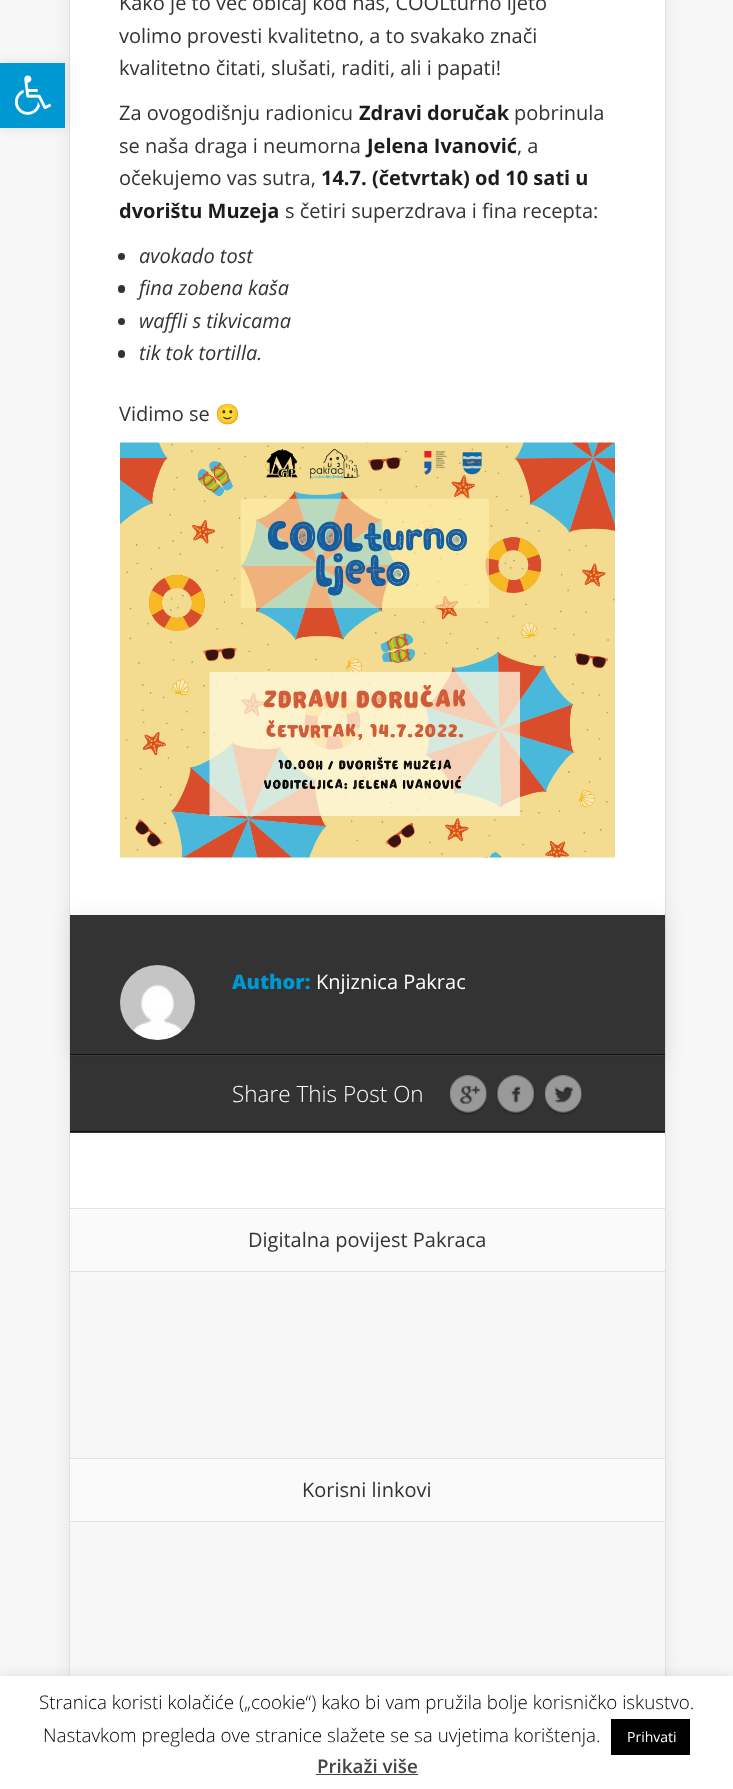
<svg xmlns="http://www.w3.org/2000/svg" width="733" height="1789" viewBox="0 0 733 1789">
  <defs>
    <filter id="blur1" x="-50%" y="-200%" width="200%" height="500%"><feGaussianBlur stdDeviation="9.5"/></filter>
    <filter id="blur2" x="-50%" y="-200%" width="200%" height="500%"><feGaussianBlur stdDeviation="6"/></filter>
    <clipPath id="clip1"><rect x="70" y="1209" width="595" height="62"/></clipPath>
    <clipPath id="clip2"><rect x="70" y="1459" width="595" height="62"/></clipPath>
  </defs>
  <rect width="100%" height="100%" fill="#f7f7f7"/>
  <rect x="69" y="-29" width="597" height="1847" fill="#000000" fill-opacity="0.07" filter="url(#blur1)"/>
  <rect x="70" y="0" width="595" height="1208" fill="#ffffff"/>
  <rect x="69" y="0" width="1" height="1676" fill="#e0e0e0"/>
  <rect x="0" y="63" width="65" height="65" fill="#000000" fill-opacity="0.1" filter="url(#blur2)"/>
  <rect x="0" y="63" width="65" height="65" fill="#0098d3"/>
  <image x="14" y="75" width="38" height="40" href="img1.png"/>
  <rect x="665" y="0" width="1" height="1676" fill="#e0e0e0"/>
  <text x="119" y="10" font-family="Open Sans" font-size="20" fill="#333333">Kako je to već običaj kod nas, COOLturno ljeto</text>
  <text x="119" y="43" font-family="Open Sans" font-size="20" fill="#333333">volimo provesti kvalitetno, a to svakako znači</text>
  <text x="119" y="75" font-family="Open Sans" font-size="20" fill="#333333">kvalitetno čitati, slušati, raditi, ali i papati!</text>
  <text x="119" y="120" font-family="Open Sans" font-size="20" fill="#333333">Za ovogodišnju radionicu</text>
  <text x="359" y="120" font-family="Open Sans" font-size="20" font-weight="bold" fill="#1c1c1c">Zdravi doručak</text>
  <text x="514" y="120" font-family="Open Sans" font-size="20" fill="#333333">pobrinula</text>
  <text x="119" y="153" font-family="Open Sans" font-size="20" fill="#333333">se naša draga i neumorna</text>
  <text x="367" y="153" font-family="Open Sans" font-size="20" font-weight="bold" fill="#1c1c1c">Jelena Ivanović</text>
  <text x="517" y="153" font-family="Open Sans" font-size="20" fill="#333333">, a</text>
  <text x="119" y="185" font-family="Open Sans" font-size="20" fill="#333333">očekujemo vas sutra,</text>
  <text x="321" y="185" font-family="Open Sans" font-size="20" font-weight="bold" fill="#1c1c1c">14.7. (četvrtak) od 10 sati u</text>
  <text x="119" y="218" font-family="Open Sans" font-size="20" font-weight="bold" fill="#1c1c1c">dvorištu Muzeja</text>
  <text x="285" y="218" font-family="Open Sans" font-size="20" fill="#333333">s četiri superzdrava i fina recepta:</text>
  <circle cx="121.5" cy="256.5" r="3.5" fill="#333333"/>
  <text x="139" y="263" font-family="Open Sans" font-size="20" font-style="italic" fill="#333333">avokado tost</text>
  <rect x="118" y="285" width="7" height="8" rx="3.5" fill="#333333"/>
  <text x="139" y="295" font-family="Open Sans" font-size="20" font-style="italic" fill="#333333">fina zobena kaša</text>
  <circle cx="121.5" cy="321.5" r="3.5" fill="#333333"/>
  <text x="139" y="328" font-family="Open Sans" font-size="20" font-style="italic" fill="#333333">waffli s tikvicama</text>
  <rect x="118" y="350" width="7" height="8" rx="3.5" fill="#333333"/>
  <text x="139" y="360" font-family="Open Sans" font-size="20" font-style="italic" fill="#333333">tik tok tortilla.</text>
  <text x="119" y="421" font-family="Open Sans" font-size="20" fill="#333333">Vidimo se</text>
  <text x="215" y="421" font-family="Noto Color Emoji" font-size="20" fill="#333333">🙂</text>
  <image x="120" y="442" width="495" height="416" href="img2.png"/>
  <rect x="70" y="1056" width="595" height="77" fill="#333333"/>
  <rect x="70" y="1055" width="595" height="1" fill="#404040"/>
  <image x="450" y="1075" width="37" height="40" href="img4.png"/>
  <image x="496" y="1075" width="39" height="40" href="img5.png"/>
  <image x="545" y="1075" width="37" height="40" href="img6.png"/>
  <rect x="70" y="915" width="595" height="140" fill="#000000" fill-opacity="0.07" filter="url(#blur1)"/>
  <rect x="70" y="915" width="595" height="139" fill="#333333"/>
  <rect x="70" y="1054" width="595" height="1" fill="#0f0f0f"/>
  <image x="120" y="965" width="75" height="75" href="img3.png"/>
  <text x="232" y="989" font-family="Open Sans" font-size="20" font-weight="800" fill="#0098d3">Author:</text>
  <text x="316" y="989" font-family="Open Sans" font-size="20" fill="#ffffff">Knjiznica Pakrac</text>
  <rect x="70" y="1131" width="595" height="1" fill="#0f0f0f"/>
  <text x="232" y="1102" font-family="Open Sans" font-size="22.5" font-weight="300" fill="#ffffff">Share This Post On</text>
  <rect x="70" y="1273" width="595" height="403" fill="#f7f7f7"/>
  <rect x="70" y="1210" width="595" height="63" fill="#fafafa"/>
  <g clip-path="url(#clip1)">
    <path d="M-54 1085H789V1395H-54ZM71 1210H666V1272H71Z" fill="#ffffff" fill-rule="evenodd"/>
  </g>
  <rect x="69" y="1208" width="596" height="1" fill="#e0e0e0"/>
  <rect x="69" y="1271" width="596" height="1" fill="#e0e0e0"/>
  <text x="248" y="1247" font-family="Open Sans" font-size="20" fill="#333333">Digitalna povijest Pakraca</text>
  <rect x="70" y="1460" width="595" height="63" fill="#fafafa"/>
  <g clip-path="url(#clip2)">
    <path d="M-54 1335H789V1645H-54ZM71 1460H666V1522H71Z" fill="#ffffff" fill-rule="evenodd"/>
  </g>
  <rect x="69" y="1458" width="596" height="1" fill="#e0e0e0"/>
  <rect x="69" y="1521" width="596" height="1" fill="#e0e0e0"/>
  <text x="302" y="1497" font-family="Open Sans" font-size="20" fill="#333333">Korisni linkovi</text>
  <rect x="0" y="1675" width="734" height="114" fill="#acabab" fill-opacity="0.3" filter="url(#blur2)"/>
  <rect x="0" y="1676" width="733" height="113" fill="#ffffff"/>
  <text x="39" y="1709" font-family="Open Sans" font-size="18.75" font-weight="300" fill="#000000">Stranica koristi kolačiće („cookie“) kako bi vam pružila bolje korisničko iskustvo.</text>
  <text x="43" y="1742" font-family="Open Sans" font-size="18.75" font-weight="300" fill="#000000">Nastavkom pregleda ove stranice slažete se sa uvjetima korištenja.</text>
  <rect x="611" y="1719" width="79" height="36" fill="#000000"/>
  <text x="627" y="1742" font-family="Open Sans" font-size="14" fill="#ffffff">Prihvati</text>
  <text x="317" y="1773" font-family="Open Sans" font-size="18.75" font-weight="600" fill="#444444">Prikaži više</text>
  <rect x="316" y="1774" width="102" height="1" fill="#444444"/>
</svg>
